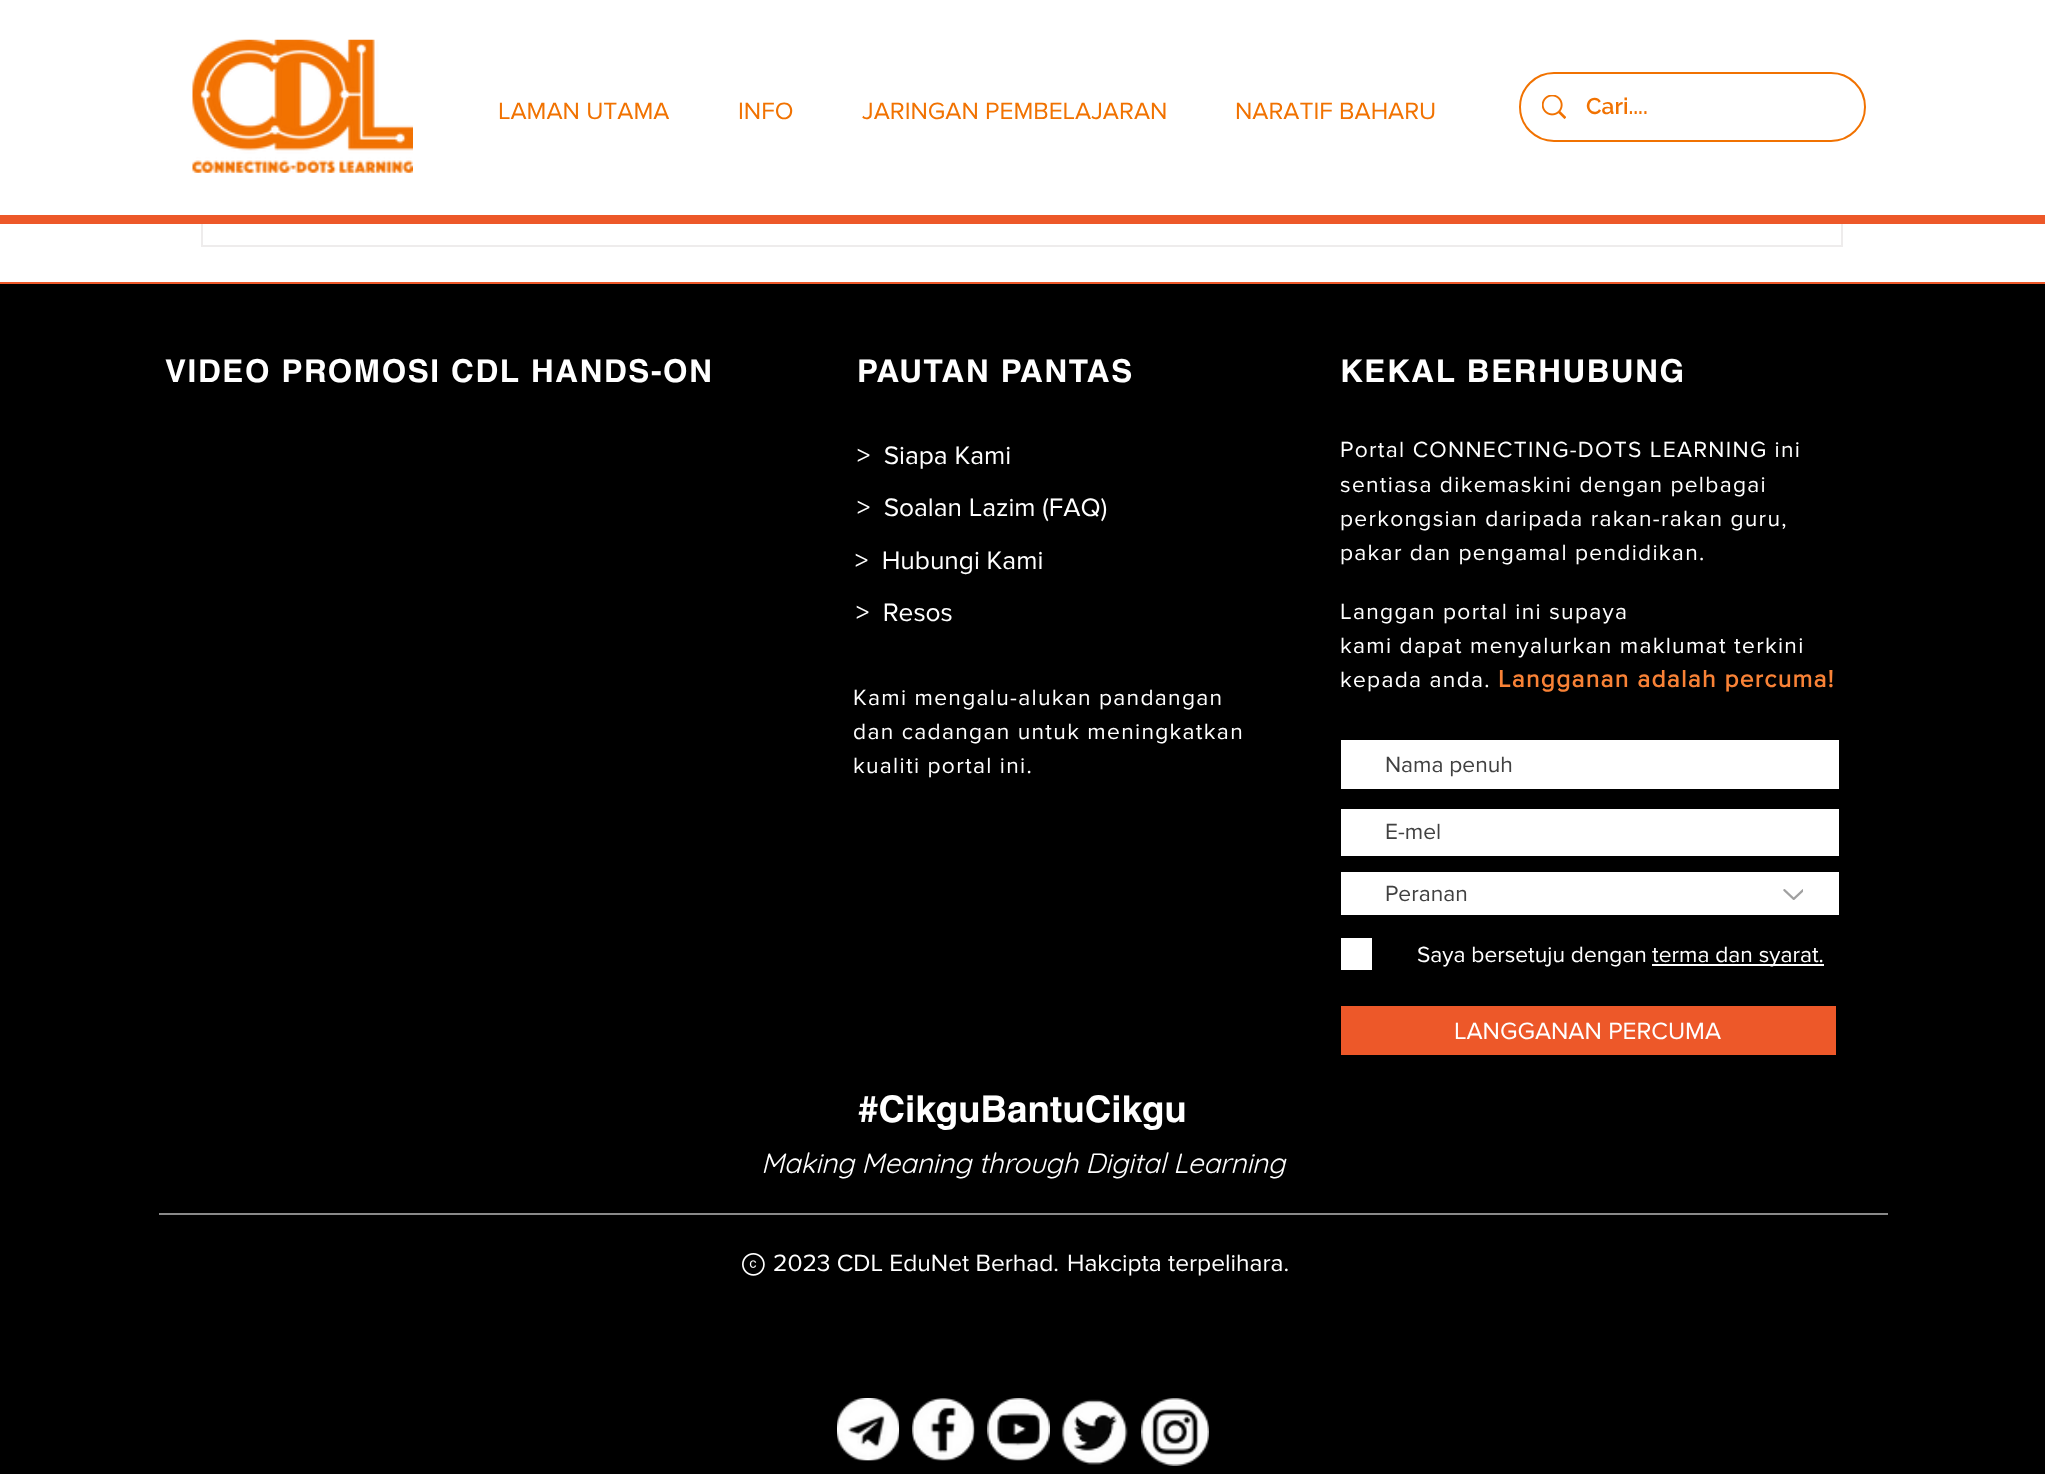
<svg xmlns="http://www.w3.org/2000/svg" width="2045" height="1474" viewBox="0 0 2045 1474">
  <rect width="100%" height="100%" fill="#ffffff"/>
  <rect x="202" y="-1" width="1640" height="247" fill="none" stroke="#eeecec" stroke-width="2"/>
  <rect x="201" y="0" width="1642" height="215" fill="#ffffff"/>
  <rect x="0" y="215" width="2045" height="9" fill="#ed5829"/>
  <image x="192" y="39" width="221" height="134" href="img1.png"/>
  <text x="498" y="119" font-family="'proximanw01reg'" font-size="24.5" fill="#f17201">LAMAN UTAMA</text>
  <text x="738" y="119" font-family="'proximanw01reg'" font-size="24.5" fill="#f17201">INFO</text>
  <text x="862" y="119" font-family="'proximanw01reg'" font-size="24.5" fill="#f17201">JARINGAN PEMBELAJARAN</text>
  <text x="1235" y="119" font-family="'proximanw01reg'" font-size="24.5" fill="#f17201">NARATIF BAHARU</text>
  <rect x="1520" y="73" width="345" height="68" rx="34" fill="none" stroke="#f17201" stroke-width="2"/>
  <image x="1542" y="95" width="24" height="24" href="img2.png"/>
  <text x="1586" y="114" font-family="Raleway" font-size="22.75" font-weight="600" fill="#f17201">Cari....</text>
  <rect x="0" y="284" width="2045" height="1190" fill="#000000"/>
  <rect x="0" y="282" width="2045" height="2" fill="#ed5829"/>
  <text x="165" y="382" font-family="helvetica" font-size="31.5" font-weight="bold" letter-spacing="1.6" fill="#ffffff">VIDEO PROMOSI CDL HANDS-ON</text>
  <text x="857" y="382" font-family="helvetica" font-size="31.5" font-weight="bold" letter-spacing="1.6" fill="#ffffff">PAUTAN PANTAS</text>
  <text x="857" y="464" font-family="'proximanw01reg'" font-size="26.25" fill="#ffffff" xml:space="preserve">&gt;  Siapa Kami</text>
  <text x="857" y="516" font-family="'proximanw01reg'" font-size="26.25" fill="#ffffff" xml:space="preserve">&gt;  Soalan Lazim (FAQ)</text>
  <text x="855" y="569" font-family="'proximanw01reg'" font-size="26.25" fill="#ffffff" xml:space="preserve">&gt;  Hubungi Kami</text>
  <text x="853" y="705" font-family="'proximanw01reg'" font-size="22.75" letter-spacing="1.3" fill="#ffffff">Kami mengalu-alukan pandangan</text>
  <text x="853" y="739" font-family="'proximanw01reg'" font-size="22.75" letter-spacing="1.3" fill="#ffffff">dan cadangan untuk meningkatkan</text>
  <text x="853" y="773" font-family="'proximanw01reg'" font-size="22.75" letter-spacing="1.3" fill="#ffffff">kualiti portal ini.</text>
  <text x="856" y="621" font-family="'proximanw01reg'" font-size="26.25" fill="#ffffff" xml:space="preserve">&gt;  Resos</text>
  <text x="1340" y="382" font-family="helvetica" font-size="31.5" font-weight="bold" letter-spacing="1.6" fill="#ffffff">KEKAL BERHUBUNG</text>
  <text x="1340" y="457" font-family="'proximanw01reg'" font-size="22.75" letter-spacing="1.3" fill="#ffffff">Portal CONNECTING-DOTS LEARNING ini</text>
  <text x="1340" y="492" font-family="'proximanw01reg'" font-size="22.75" letter-spacing="1.3" fill="#ffffff">sentiasa dikemaskini dengan pelbagai</text>
  <text x="1340" y="526" font-family="'proximanw01reg'" font-size="22.75" letter-spacing="1.3" fill="#ffffff">perkongsian daripada rakan-rakan guru,</text>
  <text x="1340" y="560" font-family="'proximanw01reg'" font-size="22.75" letter-spacing="1.3" fill="#ffffff">pakar dan pengamal pendidikan.</text>
  <text x="1340" y="619" font-family="'proximanw01reg'" font-size="22.75" letter-spacing="1.3" fill="#ffffff">Langgan portal ini supaya</text>
  <text x="1340" y="653" font-family="'proximanw01reg'" font-size="22.75" letter-spacing="1.3" fill="#ffffff">kami dapat menyalurkan maklumat terkini</text>
  <text x="1340" y="687" font-family="'proximanw01reg'" font-size="22.75" letter-spacing="1.3" fill="#ffffff">kepada anda.</text>
  <text x="1498" y="687" font-family="'proximanw01reg'" font-size="24.5" font-weight="bold" letter-spacing="1.3" fill="#f98236">Langganan adalah percuma!</text>
  <rect x="1341" y="740" width="498" height="49" fill="#ffffff"/>
  <text x="1385" y="772" font-family="'proximanw01reg'" font-size="22.75" fill="#414141">Nama penuh</text>
  <rect x="1341" y="809" width="498" height="47" fill="#ffffff"/>
  <text x="1385" y="839" font-family="'proximanw01reg'" font-size="22.75" fill="#414141">E-mel</text>
  <rect x="1341" y="872" width="498" height="43" fill="#ffffff"/>
  <text x="1385" y="901" font-family="'proximanw01reg'" font-size="22.75" fill="#414141">Peranan</text>
  <image x="1783" y="889" width="20" height="11" href="img3.png"/>
  <rect x="1341" y="938" width="31" height="32" fill="#ffffff"/>
  <text x="1417" y="962" font-family="'proximanw01reg'" font-size="22.75" fill="#ffffff">Saya bersetuju dengan</text>
  <rect x="1652" y="964" width="172" height="2" fill="#ffffff"/>
  <text x="1652" y="962" font-family="'proximanw01reg'" font-size="22.75" fill="#ffffff">terma dan syarat.</text>
  <rect x="1341" y="1006" width="495" height="49" fill="#ed5829"/>
  <text x="1454" y="1039" font-family="'proximanw01reg'" font-size="24.5" fill="#ffffff">LANGGANAN PERCUMA</text>
  <text x="858" y="1122" font-family="helvetica" font-size="36.75" font-weight="bold" fill="#ffffff">#CikguBantuCikgu</text>
  <text x="761" y="1173" font-family="Quicksand" font-size="28" font-style="italic" letter-spacing="-0.3" fill="#ffffff">Making Meaning through Digital Learning</text>
  <rect x="159" y="1213" width="1729" height="2" fill="#898989"/>
  <image x="742" y="1253" width="23" height="23" href="img4.png"/>
  <text x="773" y="1271" font-family="'proximanw01reg'" font-size="24.5" fill="#ffffff">2023 CDL EduNet Berhad.</text>
  <text x="1067" y="1271" font-family="'proximanw01reg'" font-size="24.5" fill="#ffffff">Hakcipta terpelihara.</text>
  <image x="837" y="1398" width="63" height="63" href="img5.png"/>
  <image x="912" y="1398" width="63" height="63" href="img6.png"/>
  <image x="987" y="1398" width="63" height="63" href="img7.png"/>
  <image x="1061" y="1399" width="67" height="66" href="img8.png"/>
  <image x="1141" y="1398" width="68" height="68" href="img9.png"/>
</svg>
